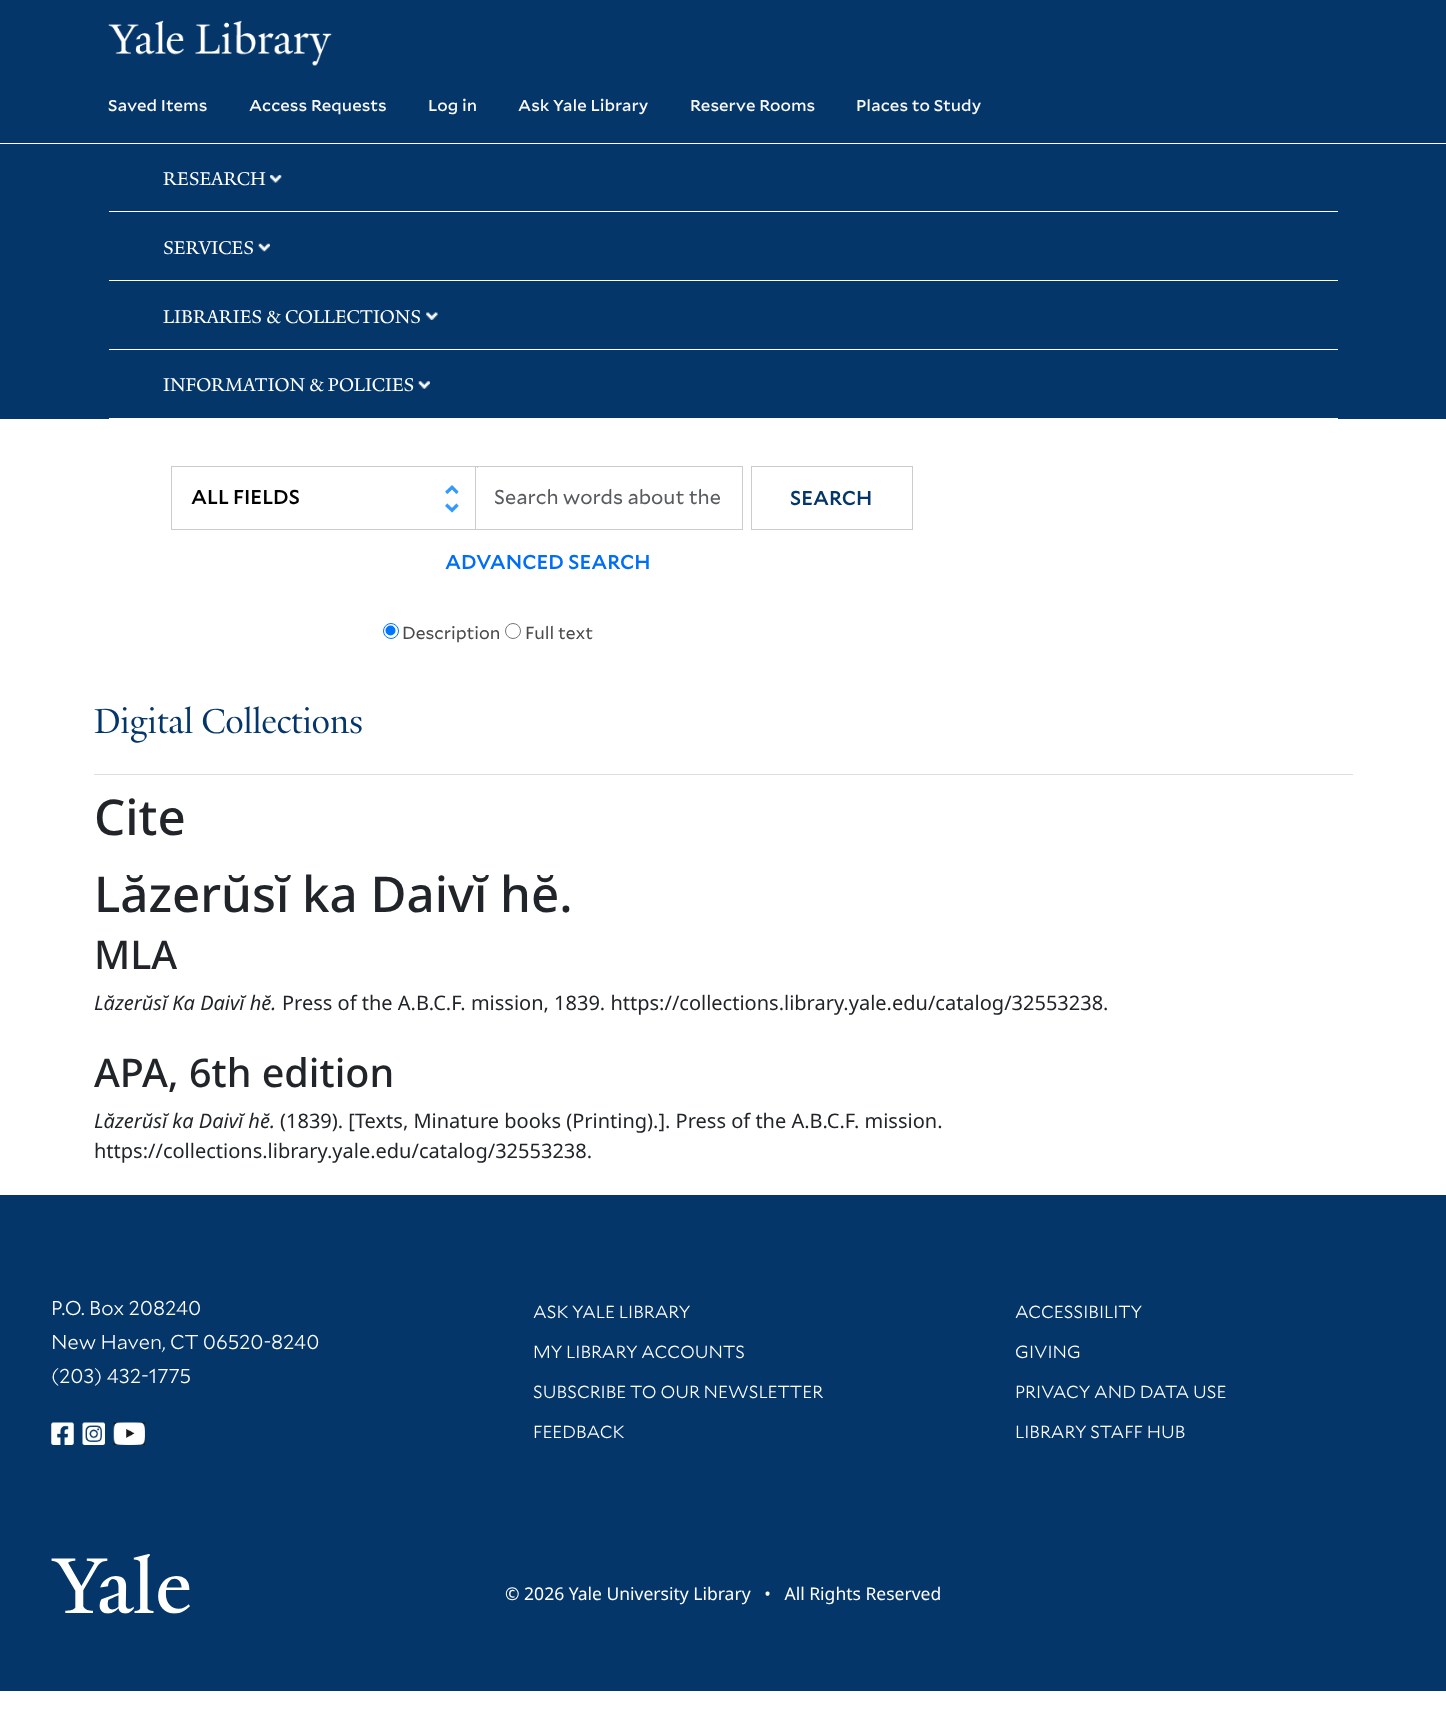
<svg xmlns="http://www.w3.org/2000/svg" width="1446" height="1714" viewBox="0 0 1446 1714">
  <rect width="100%" height="100%" fill="#ffffff"/>
  <rect x="0" y="0" width="1446" height="143" fill="#043669"/>
  <image x="108" y="20" width="224" height="46" href="img1.png"/>
  <text x="108" y="111" font-family="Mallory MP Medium" font-size="15" font-weight="500" fill="#f9f9f9">Saved Items</text>
  <text x="249" y="111" font-family="Mallory MP Medium" font-size="15" font-weight="500" fill="#f9f9f9">Access Requests</text>
  <text x="428" y="111" font-family="Mallory MP Medium" font-size="15" font-weight="500" fill="#f9f9f9">Log in</text>
  <text x="518" y="111" font-family="Mallory MP Medium" font-size="15" font-weight="500" fill="#f9f9f9">Ask Yale Library</text>
  <text x="690" y="111" font-family="Mallory MP Medium" font-size="15" font-weight="500" fill="#f9f9f9">Reserve Rooms</text>
  <text x="856" y="111" font-family="Mallory MP Medium" font-size="15" font-weight="500" fill="#f9f9f9">Places to Study</text>
  <rect x="0" y="144" width="1446" height="275" fill="#043669"/>
  <rect x="109" y="211" width="1229" height="1" fill="#ffffff"/>
  <text x="163" y="185" font-family="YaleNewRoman" font-size="20" fill="#ffffff">RESEARCH</text>
  <image x="270" y="175" width="12" height="8" href="img2.png"/>
  <rect x="109" y="280" width="1229" height="1" fill="#ffffff"/>
  <text x="163" y="254" font-family="YaleNewRoman" font-size="20" fill="#ffffff">SERVICES</text>
  <image x="258" y="243" width="12" height="9" href="img3.png"/>
  <rect x="109" y="349" width="1229" height="1" fill="#ffffff"/>
  <text x="163" y="323" font-family="YaleNewRoman" font-size="20" fill="#ffffff">LIBRARIES &amp; COLLECTIONS</text>
  <image x="426" y="312" width="12" height="8" href="img4.png"/>
  <rect x="109" y="418" width="1229" height="1" fill="#ffffff"/>
  <text x="163" y="391" font-family="YaleNewRoman" font-size="20" fill="#ffffff">INFORMATION &amp; POLICIES</text>
  <image x="418" y="381" width="12" height="8" href="img5.png"/>
  <image x="445" y="485" width="14" height="28" href="img6.png"/>
  <rect x="171.5" y="466.5" width="306" height="63" fill="none" stroke="#cccccc"/>
  <text x="191" y="504" font-family="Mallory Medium" font-size="20" font-weight="500" fill="#000000">ALL FIELDS</text>
  <rect x="477" y="468" width="1" height="61" fill="#ffffff"/>
  <rect x="475.5" y="466.5" width="267" height="63" fill="none" stroke="#cccccc"/>
  <text x="494" y="504" font-family="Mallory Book" font-size="20" fill="#595c5f">Search words about the</text>
  <rect x="751.5" y="466.5" width="161" height="63" fill="none" stroke="#cccccc"/>
  <text x="790" y="505" font-family="Mallory Medium" font-size="20" font-weight="500" fill="#043669">SEARCH</text>
  <text x="445" y="569" font-family="Mallory Medium" font-size="20" font-weight="500" fill="#006ef5">ADVANCED SEARCH</text>
  <circle cx="391" cy="631" r="7.5" fill="none" stroke="#0075ff"/>
  <circle cx="390.5" cy="630.5" r="5" fill="#0075ff"/>
  <text x="402" y="639" font-family="Mallory Book" font-size="17.5" fill="#4a4a4a">Description</text>
  <circle cx="513" cy="631" r="7.5" fill="none" stroke="#767676"/>
  <text x="525" y="639" font-family="Mallory Book" font-size="17.5" fill="#4a4a4a">Full text</text>
  <rect x="94" y="774" width="1259" height="1" fill="#dddddd"/>
  <text x="94" y="733" font-family="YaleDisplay" font-size="37.5" fill="#043669">Digital Collections</text>
  <text x="94" y="835" font-family="Noto Sans" font-size="49.25" font-weight="500" fill="#212529">Cite</text>
  <text x="94" y="912" font-family="Noto Sans" font-size="49.25" font-weight="500" fill="#212529">Lăzerŭsĭ ka Daivĭ hĕ.</text>
  <text x="94" y="969" font-family="Noto Sans" font-size="39.5" font-weight="500" fill="#212529">MLA</text>
  <text x="94" y="1010" font-family="Noto Sans" font-size="20" font-style="italic" fill="#212529">Lăzerŭsĭ Ka Daivĭ hĕ.</text>
  <text x="282" y="1010" font-family="Noto Sans" font-size="20" fill="#212529">Press of the A.B.C.F. mission, 1839. https://collections.library.yale.edu/catalog/32553238.</text>
  <text x="94" y="1087" font-family="Noto Sans" font-size="39.5" font-weight="500" fill="#212529">APA, 6th edition</text>
  <text x="94" y="1128" font-family="Noto Sans" font-size="20" font-style="italic" fill="#212529">Lăzerŭsĭ ka Daivĭ hĕ.</text>
  <text x="280" y="1128" font-family="Noto Sans" font-size="20" fill="#212529">(1839). [Texts, Minature books (Printing).]. Press of the A.B.C.F. mission.</text>
  <text x="94" y="1158" font-family="Noto Sans" font-size="20" fill="#212529">https://collections.library.yale.edu/catalog/32553238.</text>
  <rect x="0" y="1195" width="1446" height="496" fill="#043669"/>
  <text x="51" y="1315" font-family="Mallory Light" font-size="20" font-weight="300" fill="#ffffff">P.O. Box 208240</text>
  <text x="51" y="1349" font-family="Mallory Light" font-size="20" font-weight="300" fill="#ffffff">New Haven, CT 06520-8240</text>
  <text x="51" y="1383" font-family="Mallory Light" font-size="20" font-weight="300" fill="#ffffff">(203) 432-1775</text>
  <image x="51" y="1422" width="23" height="23" href="img7.png"/>
  <image x="82" y="1422" width="23" height="23" href="img8.png"/>
  <image x="113" y="1422" width="32" height="23" href="img9.png"/>
  <image x="51" y="1554" width="139" height="60" href="img10.png"/>
  <text x="533" y="1318" font-family="Mallory Light" font-size="17.5" font-weight="300" fill="#ffffff">ASK YALE LIBRARY</text>
  <text x="533" y="1358" font-family="Mallory Light" font-size="17.5" font-weight="300" fill="#ffffff">MY LIBRARY ACCOUNTS</text>
  <text x="533" y="1398" font-family="Mallory Light" font-size="17.5" font-weight="300" fill="#ffffff">SUBSCRIBE TO OUR NEWSLETTER</text>
  <text x="533" y="1438" font-family="Mallory Light" font-size="17.5" font-weight="300" fill="#ffffff">FEEDBACK</text>
  <text x="1015" y="1318" font-family="Mallory Light" font-size="17.5" font-weight="300" fill="#ffffff">ACCESSIBILITY</text>
  <text x="1015" y="1358" font-family="Mallory Light" font-size="17.5" font-weight="300" fill="#ffffff">GIVING</text>
  <text x="1015" y="1398" font-family="Mallory Light" font-size="17.5" font-weight="300" fill="#ffffff">PRIVACY AND DATA USE</text>
  <text x="1015" y="1438" font-family="Mallory Light" font-size="17.5" font-weight="300" fill="#ffffff">LIBRARY STAFF HUB</text>
  <text x="505" y="1600" font-family="Noto Sans" font-size="17.5" fill="#ffffff" xml:space="preserve">© 2026 Yale University Library   •   All Rights Reserved</text>
</svg>
